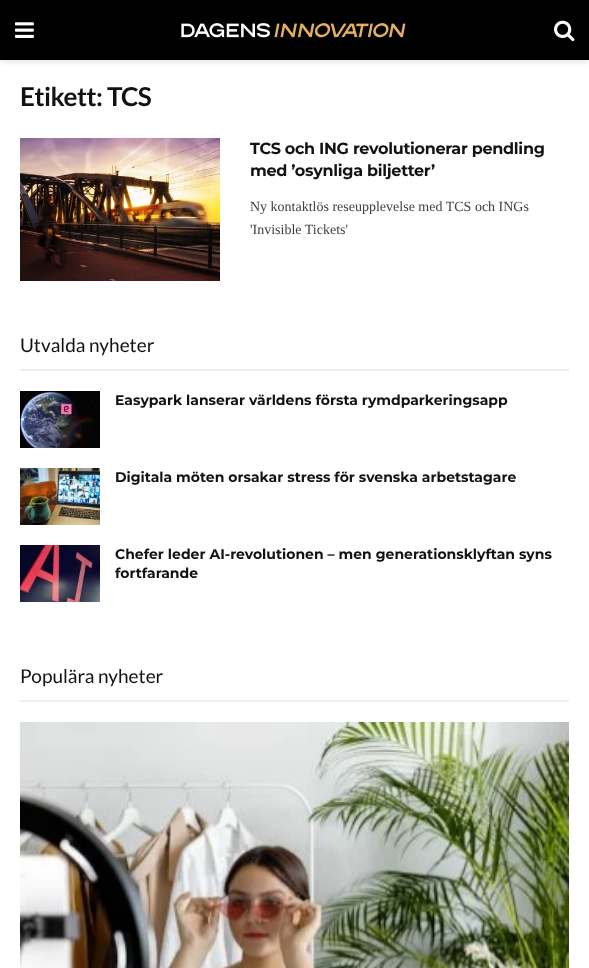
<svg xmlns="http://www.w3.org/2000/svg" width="589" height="968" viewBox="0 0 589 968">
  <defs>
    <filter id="blur1" x="-50%" y="-200%" width="200%" height="500%"><feGaussianBlur stdDeviation="3"/></filter>
  </defs>
  <rect width="100%" height="100%" fill="#ffffff"/>
  <rect x="0" y="2" width="589" height="60" fill="#000000" fill-opacity="0.1" filter="url(#blur1)"/>
  <rect x="0" y="0" width="589" height="60" fill="#000000"/>
  <image x="15" y="22" width="19" height="16" href="img1.png"/>
  <image x="181" y="23" width="225" height="15" href="img2.png"/>
  <image x="554" y="20" width="21" height="22" href="img3.png"/>
  <text x="20" y="106" font-family="Lato" font-size="26" font-weight="bold" letter-spacing="-0.5" fill="#121212">Etikett: TCS</text>
  <image x="20" y="138" width="200" height="143" href="img4.png"/>
  <text x="250" y="154" font-family="Montserrat" font-size="16" font-weight="bold" letter-spacing="-0.3" fill="#121212">TCS och ING revolutionerar pendling</text>
  <text x="250" y="176" font-family="Montserrat" font-size="16" font-weight="bold" letter-spacing="-0.3" fill="#121212">med ’osynliga biljetter’</text>
  <text x="250" y="211" font-family="Liberation Serif" font-size="14" fill="#3f3f3f">Ny kontaktlös reseupplevelse med TCS och INGs</text>
  <text x="250" y="234" font-family="Liberation Serif" font-size="14" fill="#3f3f3f">'Invisible Tickets'</text>
  <rect x="20" y="369" width="549" height="2" fill="#eeeeee"/>
  <text x="20" y="352" font-family="Lato" font-size="19" fill="#121212">Utvalda nyheter</text>
  <image x="20" y="391" width="80" height="57" href="img5.png"/>
  <text x="115" y="405" font-family="Montserrat" font-size="14" font-weight="bold" fill="#121212">Easypark lanserar världens första rymdparkeringsapp</text>
  <image x="20" y="468" width="80" height="57" href="img6.png"/>
  <text x="115" y="482" font-family="Montserrat" font-size="14" font-weight="bold" fill="#121212">Digitala möten orsakar stress för svenska arbetstagare</text>
  <image x="20" y="545" width="80" height="57" href="img7.png"/>
  <text x="115" y="559" font-family="Montserrat" font-size="14" font-weight="bold" fill="#121212">Chefer leder AI-revolutionen – men generationsklyftan syns</text>
  <text x="115" y="578" font-family="Montserrat" font-size="14" font-weight="bold" fill="#121212">fortfarande</text>
  <rect x="20" y="700" width="549" height="2" fill="#eeeeee"/>
  <text x="20" y="683" font-family="Lato" font-size="19" fill="#121212">Populära nyheter</text>
  <image x="20" y="722" width="549" height="246" href="img8.png"/>
</svg>
